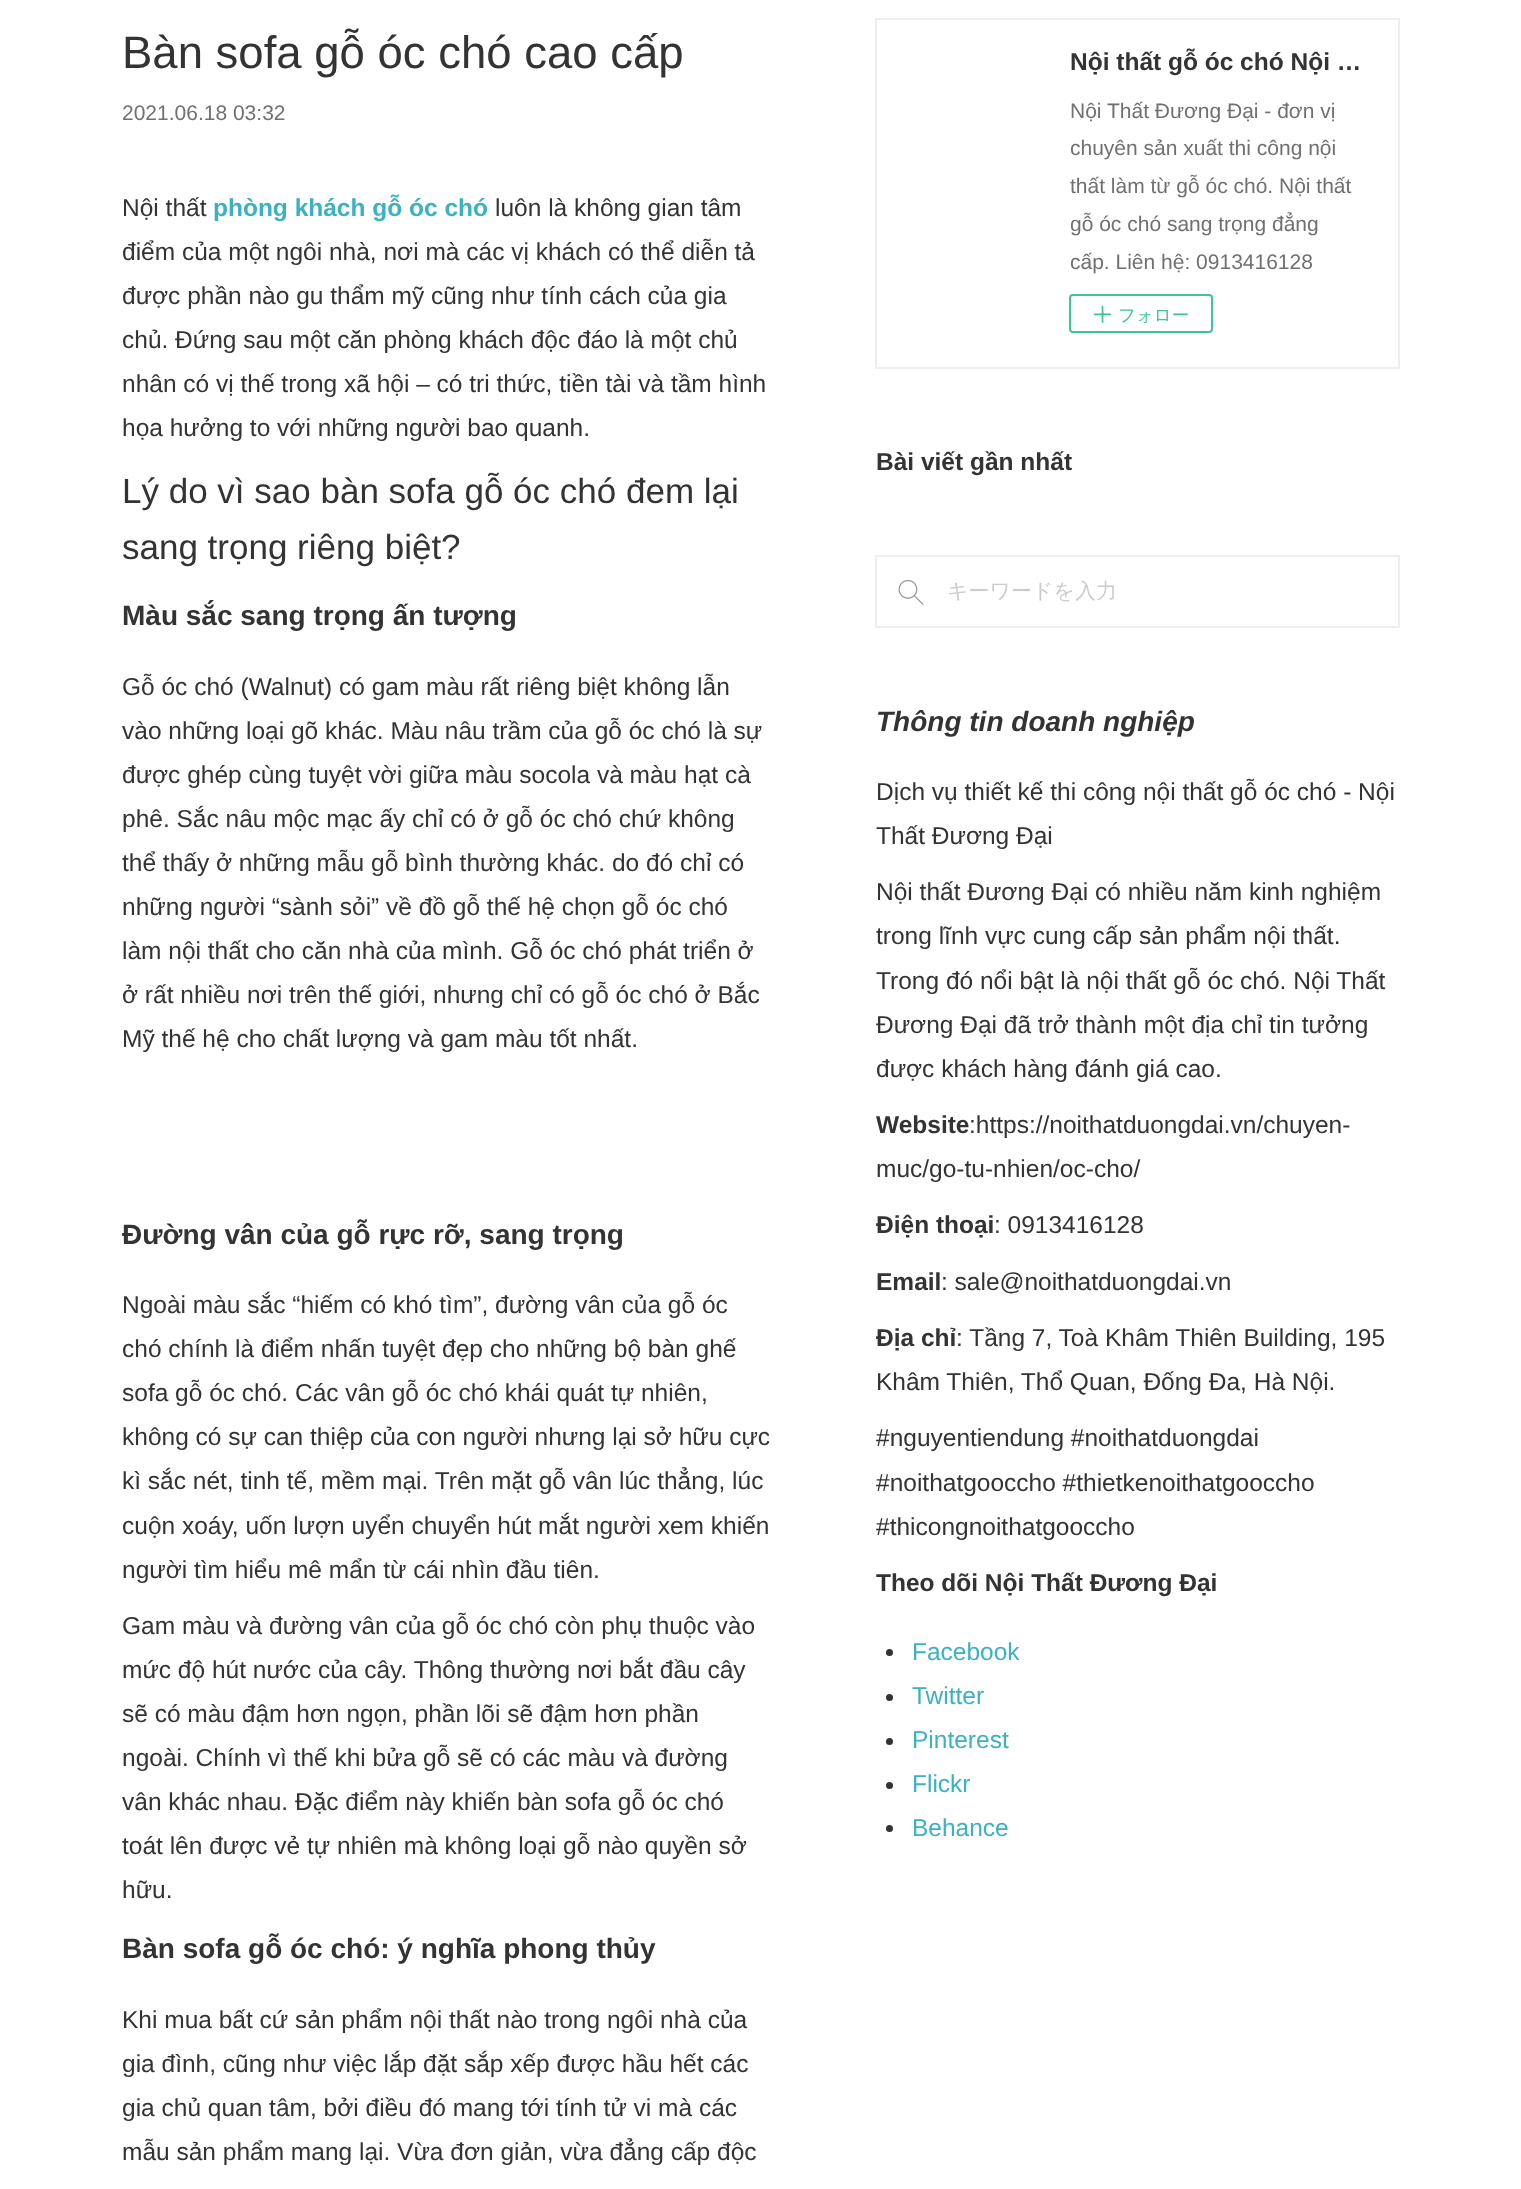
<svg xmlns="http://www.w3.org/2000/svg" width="1521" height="2189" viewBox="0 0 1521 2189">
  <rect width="100%" height="100%" fill="#ffffff"/>
  <text x="122" y="68" font-family="Liberation Sans" font-size="45.5" fill="#333333">Bàn sofa gỗ óc chó cao cấp</text>
  <text x="122" y="120" font-family="Liberation Sans" font-size="21" fill="#707070">2021.06.18 03:32</text>
  <text x="122" y="216" font-family="Liberation Sans" font-size="24.5" fill="#333333">Nội thất</text>
  <text x="213" y="216" font-family="Liberation Sans" font-size="24.5" font-weight="bold" fill="#3bb1c2">phòng khách gỗ óc chó</text>
  <text x="495" y="216" font-family="Liberation Sans" font-size="24.5" fill="#333333">luôn là không gian tâm</text>
  <text x="122" y="260" font-family="Liberation Sans" font-size="24.5" fill="#333333">điểm của một ngôi nhà, nơi mà các vị khách có thể diễn tả</text>
  <text x="122" y="304" font-family="Liberation Sans" font-size="24.5" fill="#333333">được phần nào gu thẩm mỹ cũng như tính cách của gia</text>
  <text x="122" y="348" font-family="Liberation Sans" font-size="24.5" fill="#333333">chủ. Đứng sau một căn phòng khách độc đáo là một chủ</text>
  <text x="122" y="392" font-family="Liberation Sans" font-size="24.5" fill="#333333">nhân có vị thế trong xã hội – có tri thức, tiền tài và tầm hình</text>
  <text x="122" y="436" font-family="Liberation Sans" font-size="24.5" fill="#333333">họa hưởng to với những người bao quanh.</text>
  <text x="122" y="503" font-family="Liberation Sans" font-size="35" fill="#333333">Lý do vì sao bàn sofa gỗ óc chó đem lại</text>
  <text x="122" y="559" font-family="Liberation Sans" font-size="35" fill="#333333">sang trọng riêng biệt?</text>
  <text x="122" y="625" font-family="Liberation Sans" font-size="28" font-weight="bold" fill="#333333">Màu sắc sang trọng ấn tượng</text>
  <text x="122" y="695" font-family="Liberation Sans" font-size="24.5" fill="#333333">Gỗ óc chó (Walnut) có gam màu rất riêng biệt không lẫn</text>
  <text x="122" y="739" font-family="Liberation Sans" font-size="24.5" fill="#333333">vào những loại gõ khác. Màu nâu trầm của gỗ óc chó là sự</text>
  <text x="122" y="783" font-family="Liberation Sans" font-size="24.5" fill="#333333">được ghép cùng tuyệt vời giữa màu socola và màu hạt cà</text>
  <text x="122" y="827" font-family="Liberation Sans" font-size="24.5" fill="#333333">phê. Sắc nâu mộc mạc ấy chỉ có ở gỗ óc chó chứ không</text>
  <text x="122" y="871" font-family="Liberation Sans" font-size="24.5" fill="#333333">thể thấy ở những mẫu gỗ bình thường khác. do đó chỉ có</text>
  <text x="122" y="915" font-family="Liberation Sans" font-size="24.5" fill="#333333">những người “sành sỏi” về đồ gỗ thế hệ chọn gỗ óc chó</text>
  <text x="122" y="959" font-family="Liberation Sans" font-size="24.5" fill="#333333">làm nội thất cho căn nhà của mình. Gỗ óc chó phát triển ở</text>
  <text x="122" y="1003" font-family="Liberation Sans" font-size="24.5" fill="#333333">ở rất nhiều nơi trên thế giới, nhưng chỉ có gỗ óc chó ở Bắc</text>
  <text x="122" y="1047" font-family="Liberation Sans" font-size="24.5" fill="#333333">Mỹ thế hệ cho chất lượng và gam màu tốt nhất.</text>
  <text x="122" y="1244" font-family="Liberation Sans" font-size="28" font-weight="bold" fill="#333333">Đường vân của gỗ rực rỡ, sang trọng</text>
  <text x="122" y="1313" font-family="Liberation Sans" font-size="24.5" fill="#333333">Ngoài màu sắc “hiếm có khó tìm”, đường vân của gỗ óc</text>
  <text x="122" y="1357" font-family="Liberation Sans" font-size="24.5" fill="#333333">chó chính là điểm nhấn tuyệt đẹp cho những bộ bàn ghế</text>
  <text x="122" y="1401" font-family="Liberation Sans" font-size="24.5" fill="#333333">sofa gỗ óc chó. Các vân gỗ óc chó khái quát tự nhiên,</text>
  <text x="122" y="1445" font-family="Liberation Sans" font-size="24.5" fill="#333333">không có sự can thiệp của con người nhưng lại sở hữu cực</text>
  <text x="122" y="1489" font-family="Liberation Sans" font-size="24.5" fill="#333333">kì sắc nét, tinh tế, mềm mại. Trên mặt gỗ vân lúc thẳng, lúc</text>
  <text x="122" y="1534" font-family="Liberation Sans" font-size="24.5" fill="#333333">cuộn xoáy, uốn lượn uyển chuyển hút mắt người xem khiến</text>
  <text x="122" y="1578" font-family="Liberation Sans" font-size="24.5" fill="#333333">người tìm hiểu mê mẩn từ cái nhìn đầu tiên.</text>
  <text x="122" y="1634" font-family="Liberation Sans" font-size="24.5" fill="#333333">Gam màu và đường vân của gỗ óc chó còn phụ thuộc vào</text>
  <text x="122" y="1678" font-family="Liberation Sans" font-size="24.5" fill="#333333">mức độ hút nước của cây. Thông thường nơi bắt đầu cây</text>
  <text x="122" y="1722" font-family="Liberation Sans" font-size="24.5" fill="#333333">sẽ có màu đậm hơn ngọn, phần lõi sẽ đậm hơn phần</text>
  <text x="122" y="1766" font-family="Liberation Sans" font-size="24.5" fill="#333333">ngoài. Chính vì thế khi bửa gỗ sẽ có các màu và đường</text>
  <text x="122" y="1810" font-family="Liberation Sans" font-size="24.5" fill="#333333">vân khác nhau. Đặc điểm này khiến bàn sofa gỗ óc chó</text>
  <text x="122" y="1854" font-family="Liberation Sans" font-size="24.5" fill="#333333">toát lên được vẻ tự nhiên mà không loại gỗ nào quyền sở</text>
  <text x="122" y="1898" font-family="Liberation Sans" font-size="24.5" fill="#333333">hữu.</text>
  <text x="122" y="1958" font-family="Liberation Sans" font-size="28" font-weight="bold" fill="#333333">Bàn sofa gỗ óc chó: ý nghĩa phong thủy</text>
  <text x="122" y="2028" font-family="Liberation Sans" font-size="24.5" fill="#333333">Khi mua bất cứ sản phẩm nội thất nào trong ngôi nhà của</text>
  <text x="122" y="2072" font-family="Liberation Sans" font-size="24.5" fill="#333333">gia đình, cũng như việc lắp đặt sắp xếp được hầu hết các</text>
  <text x="122" y="2116" font-family="Liberation Sans" font-size="24.5" fill="#333333">gia chủ quan tâm, bởi điều đó mang tới tính tử vi mà các</text>
  <text x="122" y="2160" font-family="Liberation Sans" font-size="24.5" fill="#333333">mẫu sản phẩm mang lại. Vừa đơn giản, vừa đẳng cấp độc</text>
  <rect x="876" y="19" width="523" height="349" fill="none" stroke="#eeeeee" stroke-width="2"/>
  <text x="1070" y="70" font-family="Liberation Sans" font-size="24.5" font-weight="bold" fill="#333333">Nội thất gỗ óc chó Nội …</text>
  <text x="1070" y="118" font-family="Liberation Sans" font-size="21" fill="#707070">Nội Thất Đương Đại - đơn vị</text>
  <text x="1070" y="155" font-family="Liberation Sans" font-size="21" fill="#707070">chuyên sản xuất thi công nội</text>
  <text x="1070" y="193" font-family="Liberation Sans" font-size="21" fill="#707070">thất làm từ gỗ óc chó. Nội thất</text>
  <text x="1070" y="231" font-family="Liberation Sans" font-size="21" fill="#707070">gỗ óc chó sang trọng đẳng</text>
  <text x="1070" y="269" font-family="Liberation Sans" font-size="21" fill="#707070">cấp. Liên hệ: 0913416128</text>
  <rect x="1070" y="295" width="142" height="37" rx="3" fill="none" stroke="#3dc49d" stroke-width="2"/>
  <image x="1093" y="305" width="19" height="18" href="img1.png"/>
  <text x="1118" y="321" font-family="WenQuanYi Zen Hei" font-size="17.5" font-weight="500" fill="#3dc49d">フォロー</text>
  <text x="876" y="470" font-family="Liberation Sans" font-size="24.5" font-weight="bold" fill="#333333">Bài viết gần nhất</text>
  <rect x="876" y="556" width="523" height="71" fill="none" stroke="#eeeeee" stroke-width="2"/>
  <image x="898" y="579" width="26" height="26" href="img2.png"/>
  <text x="947" y="598" font-family="WenQuanYi Zen Hei" font-size="21" font-weight="500" fill="#cccccc">キーワードを入力</text>
  <text x="876" y="731" font-family="Liberation Sans" font-size="28" font-weight="bold" font-style="italic" fill="#333333">Thông tin doanh nghiệp</text>
  <text x="876" y="800" font-family="Liberation Sans" font-size="24.5" fill="#333333">Dịch vụ thiết kế thi công nội thất gỗ óc chó - Nội</text>
  <text x="876" y="844" font-family="Liberation Sans" font-size="24.5" fill="#333333">Thất Đương Đại</text>
  <text x="876" y="900" font-family="Liberation Sans" font-size="24.5" fill="#333333">Nội thất Đương Đại có nhiều năm kinh nghiệm</text>
  <text x="876" y="944" font-family="Liberation Sans" font-size="24.5" fill="#333333">trong lĩnh vực cung cấp sản phẩm nội thất.</text>
  <text x="876" y="989" font-family="Liberation Sans" font-size="24.5" fill="#333333">Trong đó nổi bật là nội thất gỗ óc chó. Nội Thất</text>
  <text x="876" y="1033" font-family="Liberation Sans" font-size="24.5" fill="#333333">Đương Đại đã trở thành một địa chỉ tin tưởng</text>
  <text x="876" y="1077" font-family="Liberation Sans" font-size="24.5" fill="#333333">được khách hàng đánh giá cao.</text>
  <text x="876" y="1133" font-family="Liberation Sans" font-size="24.5" font-weight="bold" fill="#333333">Website</text>
  <text x="969" y="1133" font-family="Liberation Sans" font-size="24.5" fill="#333333">:https://noithatduongdai.vn/chuyen-</text>
  <text x="876" y="1177" font-family="Liberation Sans" font-size="24.5" fill="#333333">muc/go-tu-nhien/oc-cho/</text>
  <text x="876" y="1233" font-family="Liberation Sans" font-size="24.5" font-weight="bold" fill="#333333">Điện thoại</text>
  <text x="994" y="1233" font-family="Liberation Sans" font-size="24.5" fill="#333333">: 0913416128</text>
  <text x="876" y="1290" font-family="Liberation Sans" font-size="24.5" font-weight="bold" fill="#333333">Email</text>
  <text x="941" y="1290" font-family="Liberation Sans" font-size="24.5" fill="#333333">: sale@noithatduongdai.vn</text>
  <text x="876" y="1346" font-family="Liberation Sans" font-size="24.5" font-weight="bold" fill="#333333">Địa chỉ</text>
  <text x="956" y="1346" font-family="Liberation Sans" font-size="24.5" fill="#333333">: Tầng 7, Toà Khâm Thiên Building, 195</text>
  <text x="876" y="1390" font-family="Liberation Sans" font-size="24.5" fill="#333333">Khâm Thiên, Thổ Quan, Đống Đa, Hà Nội.</text>
  <text x="876" y="1446" font-family="Liberation Sans" font-size="24.5" fill="#333333">#nguyentiendung #noithatduongdai</text>
  <text x="876" y="1491" font-family="Liberation Sans" font-size="24.5" fill="#333333">#noithatgooccho #thietkenoithatgooccho</text>
  <text x="876" y="1535" font-family="Liberation Sans" font-size="24.5" fill="#333333">#thicongnoithatgooccho</text>
  <text x="876" y="1591" font-family="Liberation Sans" font-size="24.5" font-weight="bold" fill="#333333">Theo dõi Nội Thất Đương Đại</text>
  <circle cx="889.5" cy="1652.5" r="3.5" fill="#333333"/>
  <text x="912" y="1660" font-family="Liberation Sans" font-size="24.5" fill="#3bb1c2">Facebook</text>
  <circle cx="889.5" cy="1697.5" r="3.5" fill="#333333"/>
  <text x="912" y="1704" font-family="Liberation Sans" font-size="24.5" fill="#3bb1c2">Twitter</text>
  <circle cx="889.5" cy="1741.5" r="3.5" fill="#333333"/>
  <text x="912" y="1748" font-family="Liberation Sans" font-size="24.5" fill="#3bb1c2">Pinterest</text>
  <circle cx="889.5" cy="1785.5" r="3.5" fill="#333333"/>
  <text x="912" y="1792" font-family="Liberation Sans" font-size="24.5" fill="#3bb1c2">Flickr</text>
  <circle cx="889.5" cy="1828.5" r="3.5" fill="#333333"/>
  <text x="912" y="1836" font-family="Liberation Sans" font-size="24.5" fill="#3bb1c2">Behance</text>
</svg>
